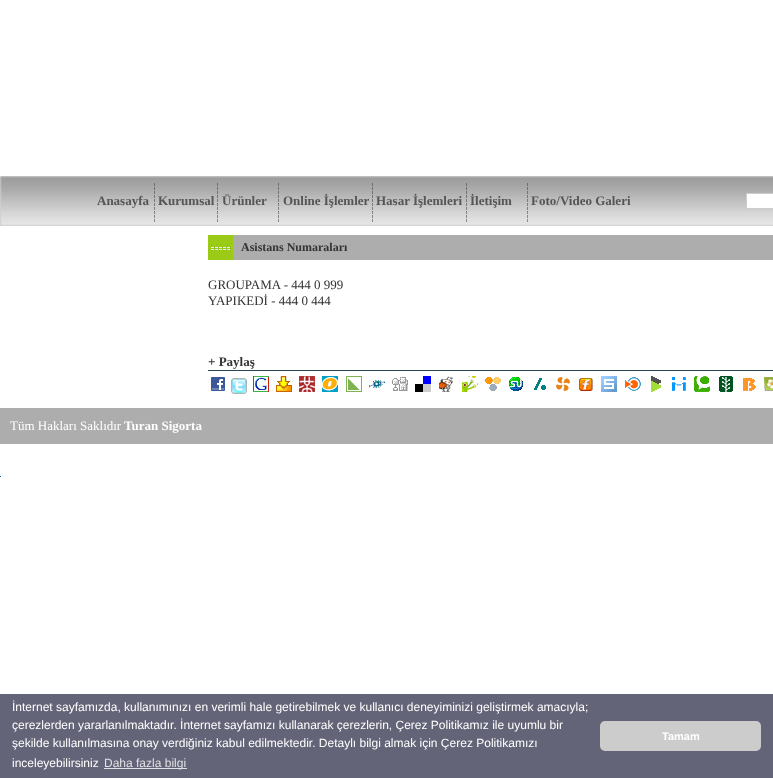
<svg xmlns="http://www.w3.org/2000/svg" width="773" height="778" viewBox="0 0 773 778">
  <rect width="100%" height="100%" fill="#ffffff"/>
  <image x="0" y="176" width="10" height="50" href="img1.png"/>
  <image x="10" y="176" width="763" height="50" href="img2.png"/>
  <text x="97" y="205" font-family="Liberation Serif" font-size="13" font-weight="bold" fill="#555555">Anasayfa</text>
  <image x="154" y="176" width="1" height="50" href="img3.png"/>
  <text x="158" y="205" font-family="Liberation Serif" font-size="13" font-weight="bold" fill="#555555">Kurumsal</text>
  <image x="217" y="176" width="1" height="50" href="img3.png"/>
  <text x="222" y="205" font-family="Liberation Serif" font-size="13" font-weight="bold" fill="#555555">Ürünler</text>
  <image x="278" y="176" width="1" height="50" href="img3.png"/>
  <text x="283" y="205" font-family="Liberation Serif" font-size="13" font-weight="bold" fill="#555555">Online İşlemler</text>
  <image x="372" y="176" width="1" height="50" href="img3.png"/>
  <text x="376" y="205" font-family="Liberation Serif" font-size="13" font-weight="bold" fill="#555555">Hasar İşlemleri</text>
  <image x="466" y="176" width="1" height="50" href="img3.png"/>
  <text x="470" y="205" font-family="Liberation Serif" font-size="13" font-weight="bold" fill="#555555">İletişim</text>
  <image x="527" y="176" width="1" height="50" href="img3.png"/>
  <text x="531" y="205" font-family="Liberation Serif" font-size="13" font-weight="bold" fill="#555555">Foto/Video Galeri</text>
  <rect x="746.5" y="193.5" width="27" height="15" fill="#ffffff" stroke="#cccccc"/>
  <image x="208" y="235" width="25" height="25" href="img4.png"/>
  <rect x="233" y="235" width="540" height="25" fill="#adadad"/>
  <text x="241" y="251" font-family="Liberation Serif" font-size="12" font-weight="bold" fill="#333333">Asistans Numaraları</text>
  <text x="208" y="289" font-family="Liberation Serif" font-size="13" fill="#333333">GROUPAMA - 444 0 999</text>
  <text x="208" y="305" font-family="Liberation Serif" font-size="13" fill="#333333">YAPIKEDİ - 444 0 444</text>
  <text x="208" y="366" font-family="Liberation Serif" font-size="13" font-weight="bold" fill="#333333">+ Paylaş</text>
  <rect x="208" y="370" width="565" height="1" fill="#2a4956"/>
  <image x="211" y="377" width="14" height="14" href="img5.png"/>
  <image x="231" y="378" width="16" height="16" href="img6.png"/>
  <image x="253" y="376" width="16" height="16" href="img7.png"/>
  <image x="276" y="376" width="16" height="16" href="img8.png"/>
  <image x="299" y="376" width="16" height="16" href="img9.png"/>
  <image x="322" y="376" width="16" height="16" href="img10.png"/>
  <image x="346" y="376" width="16" height="16" href="img11.png"/>
  <image x="369" y="380" width="16" height="8" href="img12.png"/>
  <image x="392" y="377" width="16" height="14" href="img13.png"/>
  <image x="415" y="376" width="16" height="16" href="img14.png"/>
  <image x="439" y="376" width="14" height="16" href="img15.png"/>
  <image x="462" y="376" width="16" height="16" href="img16.png"/>
  <image x="485" y="377" width="16" height="14" href="img17.png"/>
  <image x="509" y="377" width="14" height="14" href="img18.png"/>
  <image x="534" y="378" width="12" height="12" href="img19.png"/>
  <image x="556" y="377" width="14" height="14" href="img20.png"/>
  <image x="579" y="378" width="14" height="13" href="img21.png"/>
  <image x="601" y="376" width="16" height="16" href="img22.png"/>
  <image x="625" y="377" width="16" height="14" href="img23.png"/>
  <image x="651" y="376" width="10" height="16" href="img24.png"/>
  <image x="672" y="377" width="14" height="14" href="img25.png"/>
  <image x="694" y="376" width="16" height="16" href="img26.png"/>
  <image x="719" y="376" width="14" height="16" href="img27.png"/>
  <image x="743" y="378" width="13" height="13" href="img28.png"/>
  <image x="764" y="377" width="9" height="14" href="img29.png"/>
  <rect x="0" y="408" width="773" height="36" fill="#adadad"/>
  <text x="10" y="430" font-family="Liberation Serif" font-size="13" fill="#ffffff">Tüm Hakları Saklıdır</text>
  <text x="124" y="430" font-family="Liberation Serif" font-size="13" font-weight="bold" fill="#ffffff">Turan Sigorta</text>
  <rect x="0" y="476" width="1" height="1" fill="#0e529b"/>
  <rect x="0" y="694" width="773" height="84" fill="#646478"/>
  <text x="12" y="711" font-family="Liberation Sans" font-size="12" fill="#ffffff">İnternet sayfamızda, kullanımınızı en verimli hale getirebilmek ve kullanıcı deneyiminizi geliştirmek amacıyla;</text>
  <text x="12" y="729" font-family="Liberation Sans" font-size="12" fill="#ffffff">çerezlerden yararlanılmaktadır. İnternet sayfamızı kullanarak çerezlerin, Çerez Politikamız ile uyumlu bir</text>
  <text x="12" y="747" font-family="Liberation Sans" font-size="12" fill="#ffffff">şekilde kullanılmasına onay verdiğiniz kabul edilmektedir. Detaylı bilgi almak için Çerez Politikamızı</text>
  <text x="12" y="767" font-family="Liberation Sans" font-size="12" fill="#ffffff">inceleyebilirsiniz</text>
  <rect x="104" y="768" width="83" height="1" fill="#e0e0e4"/>
  <text x="104" y="767" font-family="Liberation Sans" font-size="12" fill="#e0e0e4">Daha fazla bilgi</text>
  <rect x="600" y="721" width="161" height="30" rx="5" fill="#cccccc"/>
  <text x="662" y="740" font-family="Liberation Sans" font-size="11" font-weight="bold" fill="#ffffff">Tamam</text>
</svg>
